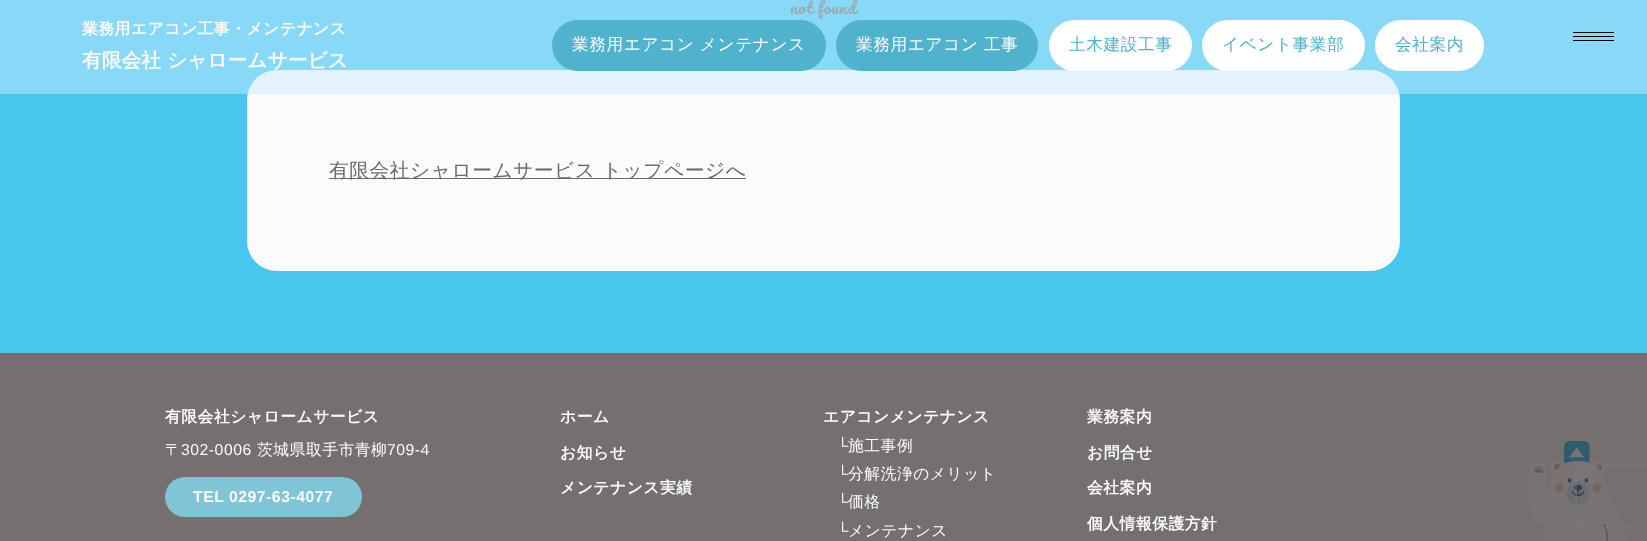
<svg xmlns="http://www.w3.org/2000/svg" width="1647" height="541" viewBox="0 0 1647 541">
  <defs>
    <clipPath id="clip1"><path d="M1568 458H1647V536H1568ZM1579 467H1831C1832 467 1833 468 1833 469V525C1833 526 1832 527 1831 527H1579C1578 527 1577 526 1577 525V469C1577 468 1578 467 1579 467Z" clip-rule="evenodd"/></clipPath>
    <filter id="blur1" x="-50%" y="-200%" width="200%" height="500%"><feGaussianBlur stdDeviation="2.5"/></filter>
  </defs>
  <rect width="100%" height="100%" fill="#756f6f"/>
  <rect x="0" y="0" width="1647" height="353" fill="#47c6ee"/>
  <text x="790" y="14" font-family="Pacifico" font-size="15.8" letter-spacing="0.5" fill="#6b6b6b">not found</text>
  <rect x="247" y="70" width="1153" height="201" rx="30" fill="#fbfbfb"/>
  <rect x="329" y="178" width="417" height="1" fill="#6b6b6b"/>
  <text x="329" y="177" font-family="WenQuanYi Zen Hei" font-size="19.75" font-weight="500" letter-spacing="0.5" fill="#6b6b6b">有限会社シャロームサービス トップページへ</text>
  <text x="165" y="422" font-family="WenQuanYi Zen Hei" font-size="15.8" font-weight="bold" letter-spacing="0.5" fill="#fbfbfb">有限会社シャロームサービス</text>
  <text x="165" y="455" font-family="WenQuanYi Zen Hei" font-size="15.8" font-weight="500" letter-spacing="0.5" fill="#fbfbfb">〒</text>
  <text x="181" y="455" font-family="Liberation Sans" font-size="15.8" letter-spacing="0.5" fill="#fbfbfb">302-0006</text>
  <text x="257" y="455" font-family="WenQuanYi Zen Hei" font-size="15.8" font-weight="500" letter-spacing="0.5" fill="#fbfbfb">茨城県取手市青柳</text>
  <text x="387" y="455" font-family="Liberation Sans" font-size="15.8" letter-spacing="0.5" fill="#fbfbfb">709-4</text>
  <rect x="165" y="477" width="197" height="40" rx="20" fill="#80c4d7"/>
  <text x="193" y="502" font-family="Liberation Sans" font-size="15.8" font-weight="bold" letter-spacing="0.5" fill="#fbfbfb">TEL 0297-63-4077</text>
  <text x="560" y="422" font-family="WenQuanYi Zen Hei" font-size="15.8" font-weight="bold" letter-spacing="0.5" fill="#fbfbfb">ホーム</text>
  <text x="560" y="458" font-family="WenQuanYi Zen Hei" font-size="15.8" font-weight="bold" letter-spacing="0.5" fill="#fbfbfb">お知らせ</text>
  <text x="560" y="493" font-family="WenQuanYi Zen Hei" font-size="15.8" font-weight="bold" letter-spacing="0.5" fill="#fbfbfb">メンテナンス実績</text>
  <text x="823" y="422" font-family="WenQuanYi Zen Hei" font-size="15.8" font-weight="bold" letter-spacing="0.5" fill="#fbfbfb">エアコンメンテナンス</text>
  <text x="837" y="451" font-family="Liberation Sans" font-size="15.8" letter-spacing="0.5" fill="#fbfbfb">└</text>
  <text x="848" y="451" font-family="WenQuanYi Zen Hei" font-size="15.8" font-weight="500" letter-spacing="0.5" fill="#fbfbfb">施工事例</text>
  <text x="837" y="479" font-family="Liberation Sans" font-size="15.8" letter-spacing="0.5" fill="#fbfbfb">└</text>
  <text x="848" y="479" font-family="WenQuanYi Zen Hei" font-size="15.8" font-weight="500" letter-spacing="0.5" fill="#fbfbfb">分解洗浄のメリット</text>
  <text x="837" y="507" font-family="Liberation Sans" font-size="15.8" letter-spacing="0.5" fill="#fbfbfb">└</text>
  <text x="848" y="507" font-family="WenQuanYi Zen Hei" font-size="15.8" font-weight="500" letter-spacing="0.5" fill="#fbfbfb">価格</text>
  <text x="837" y="536" font-family="Liberation Sans" font-size="15.8" letter-spacing="0.5" fill="#fbfbfb">└</text>
  <text x="848" y="536" font-family="WenQuanYi Zen Hei" font-size="15.8" font-weight="500" letter-spacing="0.5" fill="#fbfbfb">メンテナンス</text>
  <text x="1087" y="422" font-family="WenQuanYi Zen Hei" font-size="15.8" font-weight="bold" letter-spacing="0.5" fill="#fbfbfb">業務案内</text>
  <text x="1087" y="458" font-family="WenQuanYi Zen Hei" font-size="15.8" font-weight="bold" letter-spacing="0.5" fill="#fbfbfb">お問合せ</text>
  <text x="1087" y="493" font-family="WenQuanYi Zen Hei" font-size="15.8" font-weight="bold" letter-spacing="0.5" fill="#fbfbfb">会社案内</text>
  <text x="1087" y="529" font-family="WenQuanYi Zen Hei" font-size="15.8" font-weight="bold" letter-spacing="0.5" fill="#fbfbfb">個人情報保護方針</text>
  <rect x="0" y="0" width="1647" height="94" fill="#c9ebff" fill-opacity="0.5"/>
  <text x="82" y="34" font-family="WenQuanYi Zen Hei" font-size="15.8" font-weight="bold" letter-spacing="0.5" fill="#fbfbfb">業務用エアコン工事・メンテナンス</text>
  <text x="82" y="67" font-family="WenQuanYi Zen Hei" font-size="19.75" font-weight="bold" fill="#fbfbfb">有限会社 シャロームサービス</text>
  <rect x="552" y="20" width="274" height="51" rx="25.5" fill="#51b2cd"/>
  <text x="572" y="50" font-family="WenQuanYi Zen Hei" font-size="16.75" font-weight="500" letter-spacing="0.5" fill="#fbfbfb">業務用エアコン メンテナンス</text>
  <rect x="836" y="20" width="202" height="51" rx="25.5" fill="#51b2cd"/>
  <text x="856" y="50" font-family="WenQuanYi Zen Hei" font-size="16.75" font-weight="500" letter-spacing="0.5" fill="#fbfbfb">業務用エアコン 工事</text>
  <rect x="1049" y="20" width="143" height="51" rx="25.5" fill="#ffffff"/>
  <text x="1069" y="50" font-family="WenQuanYi Zen Hei" font-size="16.75" font-weight="500" letter-spacing="0.5" fill="#51b2cd">土木建設工事</text>
  <rect x="1202" y="20" width="163" height="51" rx="25.5" fill="#ffffff"/>
  <text x="1222" y="50" font-family="WenQuanYi Zen Hei" font-size="16.75" font-weight="500" letter-spacing="0.5" fill="#51b2cd">イベント事業部</text>
  <rect x="1375" y="20" width="109" height="51" rx="25.5" fill="#ffffff"/>
  <text x="1395" y="50" font-family="WenQuanYi Zen Hei" font-size="16.75" font-weight="500" letter-spacing="0.5" fill="#51b2cd">会社案内</text>
  <rect x="1573" y="32" width="41" height="1" fill="#000000"/>
  <rect x="1573" y="36" width="41" height="1" fill="#000000"/>
  <rect x="1573" y="40" width="41" height="1" fill="#000000"/>
  <image x="1527" y="441" width="100" height="100" href="img1.png"/>
  <g clip-path="url(#clip1)">
    <rect x="1577" y="467" width="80" height="60" rx="2" fill="#808080" filter="url(#blur1)"/>
  </g>
</svg>
